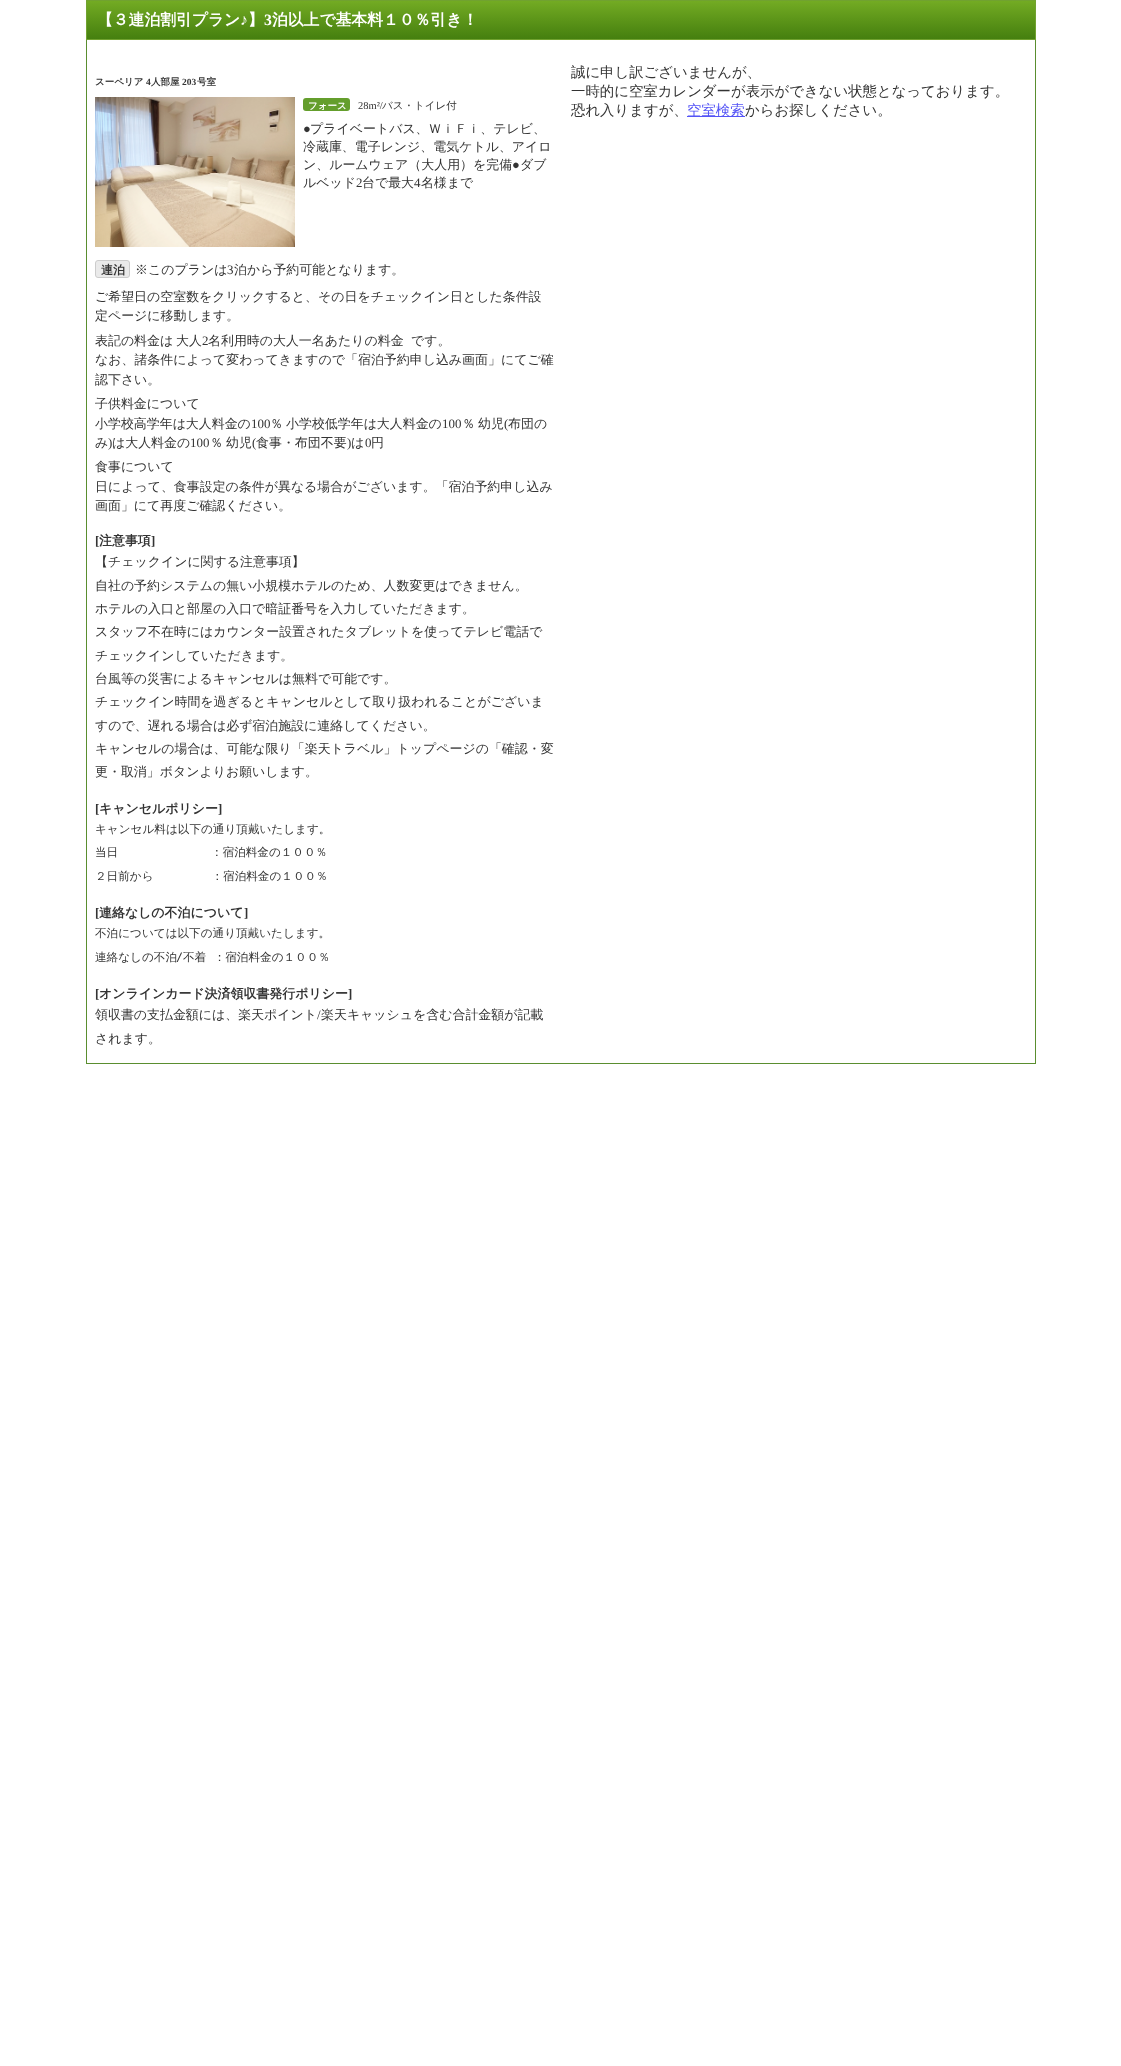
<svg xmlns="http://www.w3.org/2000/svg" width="1121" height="2066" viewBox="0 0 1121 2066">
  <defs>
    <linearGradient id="g1" gradientUnits="userSpaceOnUse" x1="561" y1="1" x2="561" y2="39"><stop offset="0" stop-color="#73ab23"/><stop offset="1" stop-color="#457f0f"/></linearGradient>
    <clipPath id="clip1"><rect x="95" y="331" width="460" height="58"/></clipPath>
  </defs>
  <rect width="100%" height="100%" fill="#ffffff"/>
  <rect x="87" y="1" width="948" height="38" fill="url(#g1)"/>
  <rect x="86.5" y="0.5" width="949" height="39" fill="none" stroke="#71a230"/>
  <text x="97" y="25" font-family="WenQuanYi Zen Hei" font-size="15.8" font-weight="bold" fill="#ffffff">【３連泊割引プラン</text>
  <text x="240" y="25" font-family="Liberation Serif" font-size="15.8" font-weight="bold" fill="#ffffff">♪</text>
  <text x="248" y="25" font-family="WenQuanYi Zen Hei" font-size="15.8" font-weight="bold" fill="#ffffff">】</text>
  <text x="264" y="25" font-family="Liberation Serif" font-size="15.8" font-weight="bold" fill="#ffffff">3</text>
  <text x="272" y="25" font-family="WenQuanYi Zen Hei" font-size="15.8" font-weight="bold" fill="#ffffff">泊以上で基本料１０％引き！</text>
  <rect x="1035" y="40" width="1" height="1024" fill="#5a8e2f"/>
  <rect x="86" y="1063" width="950" height="1" fill="#5a8e2f"/>
  <rect x="86" y="40" width="1" height="1024" fill="#5a8e2f"/>
  <text x="95" y="85" font-family="WenQuanYi Zen Hei" font-size="9.5" font-weight="bold" fill="#333333">スーペリア</text>
  <text x="146" y="85" font-family="Liberation Serif" font-size="9.5" font-weight="bold" fill="#333333">4</text>
  <text x="151" y="85" font-family="WenQuanYi Zen Hei" font-size="9.5" font-weight="bold" fill="#333333">人部屋</text>
  <text x="182" y="85" font-family="Liberation Serif" font-size="9.5" font-weight="bold" fill="#333333">203</text>
  <text x="197" y="85" font-family="WenQuanYi Zen Hei" font-size="9.5" font-weight="bold" fill="#333333">号室</text>
  <image x="95" y="97" width="200" height="150" href="img1.png"/>
  <rect x="303" y="98" width="47" height="13" rx="3" fill="#649e2c"/>
  <text x="308" y="109" font-family="WenQuanYi Zen Hei" font-size="9.5" font-weight="bold" fill="#ffffff">フォース</text>
  <text x="358" y="109" font-family="Liberation Serif" font-size="10.5" fill="#333333">28m²/</text>
  <text x="382" y="109" font-family="WenQuanYi Zen Hei" font-size="10.5" font-weight="500" fill="#333333">バス・トイレ付</text>
  <text x="303" y="133" font-family="Liberation Serif" font-size="12.95" fill="#333333">●</text>
  <text x="310" y="133" font-family="WenQuanYi Zen Hei" font-size="12.95" font-weight="500" fill="#333333">プライベートバス、ＷｉＦｉ、テレビ、</text>
  <text x="303" y="151" font-family="WenQuanYi Zen Hei" font-size="12.95" font-weight="500" fill="#333333">冷蔵庫、電子レンジ、電気ケトル、アイロ</text>
  <text x="303" y="169" font-family="WenQuanYi Zen Hei" font-size="12.95" font-weight="500" fill="#333333">ン、ルームウェア（大人用）を完備</text>
  <text x="512" y="169" font-family="Liberation Serif" font-size="12.95" fill="#333333">●</text>
  <text x="520" y="169" font-family="WenQuanYi Zen Hei" font-size="12.95" font-weight="500" fill="#333333">ダブ</text>
  <text x="303" y="187" font-family="WenQuanYi Zen Hei" font-size="12.95" font-weight="500" fill="#333333">ルベッド</text>
  <text x="356" y="187" font-family="Liberation Serif" font-size="12.95" fill="#333333">2</text>
  <text x="362" y="187" font-family="WenQuanYi Zen Hei" font-size="12.95" font-weight="500" fill="#333333">台で最大</text>
  <text x="414" y="187" font-family="Liberation Serif" font-size="12.95" fill="#333333">4</text>
  <text x="421" y="187" font-family="WenQuanYi Zen Hei" font-size="12.95" font-weight="500" fill="#333333">名様まで</text>
  <rect x="95.5" y="260.5" width="34" height="17" rx="2.5" fill="#eaeaea" stroke="#cccccc"/>
  <text x="101" y="274" font-family="WenQuanYi Zen Hei" font-size="12" font-weight="bold" fill="#333333">連泊</text>
  <text x="135" y="274" font-family="WenQuanYi Zen Hei" font-size="12.95" font-weight="500" fill="#333333">※このプランは</text>
  <text x="227" y="274" font-family="Liberation Serif" font-size="12.95" fill="#333333">3</text>
  <text x="234" y="274" font-family="WenQuanYi Zen Hei" font-size="12.95" font-weight="500" fill="#333333">泊から予約可能となります。</text>
  <text x="95" y="301" font-family="WenQuanYi Zen Hei" font-size="12.95" font-weight="500" fill="#333333">ご希望日の空室数をクリックすると、その日をチェックイン日とした条件設</text>
  <text x="95" y="320" font-family="WenQuanYi Zen Hei" font-size="12.95" font-weight="500" fill="#333333">定ページに移動します。</text>
  <text x="95" y="345" font-family="WenQuanYi Zen Hei" font-size="12.95" font-weight="500" fill="#333333">表記の料金は</text>
  <text x="176" y="345" font-family="WenQuanYi Zen Hei" font-size="12.95" font-weight="500" fill="#333333">大人</text>
  <text x="202" y="345" font-family="Liberation Serif" font-size="12.95" fill="#333333">2</text>
  <text x="208" y="345" font-family="WenQuanYi Zen Hei" font-size="12.95" font-weight="500" fill="#333333">名利用時の大人一名あたりの料金</text>
  <text x="411" y="345" font-family="WenQuanYi Zen Hei" font-size="12.95" font-weight="500" fill="#333333">です。</text>
  <text x="95" y="364" font-family="WenQuanYi Zen Hei" font-size="12.95" font-weight="500" fill="#333333">なお、諸条件によって変わってきますので「宿泊予約申し込み画面」にてご確</text>
  <g clip-path="url(#clip1)">
    <text x="95" y="384" font-family="WenQuanYi Zen Hei" font-size="12.95" font-weight="500" fill="#333333">認下さい。</text>
  </g>
  <text x="95" y="408" font-family="WenQuanYi Zen Hei" font-size="12.95" font-weight="500" fill="#333333">子供料金について</text>
  <text x="95" y="428" font-family="WenQuanYi Zen Hei" font-size="12.95" font-weight="500" fill="#333333">小学校高学年は大人料金の</text>
  <text x="251" y="428" font-family="Liberation Serif" font-size="12.95" fill="#333333">100</text>
  <text x="270" y="428" font-family="WenQuanYi Zen Hei" font-size="12.95" font-weight="500" fill="#333333">％</text>
  <text x="286" y="428" font-family="WenQuanYi Zen Hei" font-size="12.95" font-weight="500" fill="#333333">小学校低学年は大人料金の</text>
  <text x="442" y="428" font-family="Liberation Serif" font-size="12.95" fill="#333333">100</text>
  <text x="462" y="428" font-family="WenQuanYi Zen Hei" font-size="12.95" font-weight="500" fill="#333333">％</text>
  <text x="478" y="428" font-family="WenQuanYi Zen Hei" font-size="12.95" font-weight="500" fill="#333333">幼児</text>
  <text x="504" y="428" font-family="Liberation Serif" font-size="12.95" fill="#333333">(</text>
  <text x="508" y="428" font-family="WenQuanYi Zen Hei" font-size="12.95" font-weight="500" fill="#333333">布団の</text>
  <text x="95" y="447" font-family="WenQuanYi Zen Hei" font-size="12.95" font-weight="500" fill="#333333">み</text>
  <text x="108" y="447" font-family="Liberation Serif" font-size="12.95" fill="#333333">)</text>
  <text x="112" y="447" font-family="WenQuanYi Zen Hei" font-size="12.95" font-weight="500" fill="#333333">は大人料金の</text>
  <text x="190" y="447" font-family="Liberation Serif" font-size="12.95" fill="#333333">100</text>
  <text x="210" y="447" font-family="WenQuanYi Zen Hei" font-size="12.95" font-weight="500" fill="#333333">％</text>
  <text x="226" y="447" font-family="WenQuanYi Zen Hei" font-size="12.95" font-weight="500" fill="#333333">幼児</text>
  <text x="252" y="447" font-family="Liberation Serif" font-size="12.95" fill="#333333">(</text>
  <text x="256" y="447" font-family="WenQuanYi Zen Hei" font-size="12.95" font-weight="500" fill="#333333">食事・布団不要</text>
  <text x="347" y="447" font-family="Liberation Serif" font-size="12.95" fill="#333333">)</text>
  <text x="351" y="447" font-family="WenQuanYi Zen Hei" font-size="12.95" font-weight="500" fill="#333333">は</text>
  <text x="365" y="447" font-family="Liberation Serif" font-size="12.95" fill="#333333">0</text>
  <text x="371" y="447" font-family="WenQuanYi Zen Hei" font-size="12.95" font-weight="500" fill="#333333">円</text>
  <text x="95" y="471" font-family="WenQuanYi Zen Hei" font-size="12.95" font-weight="500" fill="#333333">食事について</text>
  <text x="95" y="491" font-family="WenQuanYi Zen Hei" font-size="12.95" font-weight="500" fill="#333333">日によって、食事設定の条件が異なる場合がございます。「宿泊予約申し込み</text>
  <text x="95" y="510" font-family="WenQuanYi Zen Hei" font-size="12.95" font-weight="500" fill="#333333">画面」にて再度ご確認ください。</text>
  <text x="95" y="545" font-family="Liberation Serif" font-size="12.95" font-weight="bold" fill="#333333">[</text>
  <text x="99" y="545" font-family="WenQuanYi Zen Hei" font-size="12.95" font-weight="bold" fill="#333333">注意事項</text>
  <text x="151" y="545" font-family="Liberation Serif" font-size="12.95" font-weight="bold" fill="#333333">]</text>
  <text x="95" y="566" font-family="WenQuanYi Zen Hei" font-size="12.95" font-weight="500" fill="#333333">【チェックインに関する注意事項】</text>
  <text x="95" y="590" font-family="WenQuanYi Zen Hei" font-size="12.95" font-weight="500" fill="#333333">自社の予約システムの無い小規模ホテルのため、人数変更はできません。</text>
  <text x="95" y="613" font-family="WenQuanYi Zen Hei" font-size="12.95" font-weight="500" fill="#333333">ホテルの入口と部屋の入口で暗証番号を入力していただきます。</text>
  <text x="95" y="636" font-family="WenQuanYi Zen Hei" font-size="12.95" font-weight="500" fill="#333333">スタッフ不在時にはカウンター設置されたタブレットを使ってテレビ電話で</text>
  <text x="95" y="660" font-family="WenQuanYi Zen Hei" font-size="12.95" font-weight="500" fill="#333333">チェックインしていただきます。</text>
  <text x="95" y="683" font-family="WenQuanYi Zen Hei" font-size="12.95" font-weight="500" fill="#333333">台風等の災害によるキャンセルは無料で可能です。</text>
  <text x="95" y="706" font-family="WenQuanYi Zen Hei" font-size="12.95" font-weight="500" fill="#333333">チェックイン時間を過ぎるとキャンセルとして取り扱われることがございま</text>
  <text x="95" y="730" font-family="WenQuanYi Zen Hei" font-size="12.95" font-weight="500" fill="#333333">すので、遅れる場合は必ず宿泊施設に連絡してください。</text>
  <text x="95" y="753" font-family="WenQuanYi Zen Hei" font-size="12.95" font-weight="500" fill="#333333">キャンセルの場合は、可能な限り「楽天トラベル」トップページの「確認・変</text>
  <text x="95" y="776" font-family="WenQuanYi Zen Hei" font-size="12.95" font-weight="500" fill="#333333">更・取消」ボタンよりお願いします。</text>
  <text x="95" y="813" font-family="Liberation Serif" font-size="12.95" font-weight="bold" fill="#333333">[</text>
  <text x="99" y="813" font-family="WenQuanYi Zen Hei" font-size="12.95" font-weight="bold" fill="#333333">キャンセルポリシー</text>
  <text x="218" y="813" font-family="Liberation Serif" font-size="12.95" font-weight="bold" fill="#333333">]</text>
  <text x="95" y="833" font-family="WenQuanYi Zen Hei" font-size="11.6" font-weight="500" fill="#333333">キャンセル料は以下の通り頂戴いたします。</text>
  <text x="95" y="856" font-family="WenQuanYi Zen Hei" font-size="11.6" font-weight="500" fill="#333333">当日　　　　　　　　：宿泊料金の１００％</text>
  <text x="95" y="880" font-family="WenQuanYi Zen Hei" font-size="11.6" font-weight="500" fill="#333333">２日前から　　　　　：宿泊料金の１００％</text>
  <text x="95" y="917" font-family="Liberation Serif" font-size="12.95" font-weight="bold" fill="#333333">[</text>
  <text x="99" y="917" font-family="WenQuanYi Zen Hei" font-size="12.95" font-weight="bold" fill="#333333">連絡なしの不泊について</text>
  <text x="244" y="917" font-family="Liberation Serif" font-size="12.95" font-weight="bold" fill="#333333">]</text>
  <text x="95" y="937" font-family="WenQuanYi Zen Hei" font-size="11.6" font-weight="500" fill="#333333">不泊については以下の通り頂戴いたします。</text>
  <text x="95" y="961" font-family="WenQuanYi Zen Hei" font-size="11.6" font-weight="500" fill="#333333">連絡なしの不泊</text>
  <text x="176" y="961" font-family="DejaVu Sans Mono" font-size="11.6" fill="#333333">/</text>
  <text x="183" y="961" word-spacing="4" font-family="WenQuanYi Zen Hei" font-size="11.6" font-weight="500" fill="#333333">不着 ：宿泊料金の１００％</text>
  <text x="95" y="998" font-family="Liberation Serif" font-size="12.95" font-weight="bold" fill="#333333">[</text>
  <text x="99" y="998" font-family="WenQuanYi Zen Hei" font-size="12.95" font-weight="bold" fill="#333333">オンラインカード決済領収書発行ポリシー</text>
  <text x="348" y="998" font-family="Liberation Serif" font-size="12.95" font-weight="bold" fill="#333333">]</text>
  <text x="95" y="1019" font-family="WenQuanYi Zen Hei" font-size="12.95" font-weight="500" fill="#333333">領収書の支払金額には、楽天ポイント</text>
  <text x="317" y="1019" font-family="Liberation Serif" font-size="12.95" fill="#333333">/</text>
  <text x="321" y="1019" font-family="WenQuanYi Zen Hei" font-size="12.95" font-weight="500" fill="#333333">楽天キャッシュを含む合計金額が記載</text>
  <text x="95" y="1043" font-family="WenQuanYi Zen Hei" font-size="12.95" font-weight="500" fill="#333333">されます。</text>
  <text x="571" y="77" font-family="WenQuanYi Zen Hei" font-size="14.4" font-weight="500" fill="#333333">誠に申し訳ございませんが、</text>
  <text x="571" y="96" font-family="WenQuanYi Zen Hei" font-size="14.4" font-weight="500" fill="#333333">一時的に空室カレンダーが表示ができない状態となっております。</text>
  <text x="571" y="115" font-family="WenQuanYi Zen Hei" font-size="14.4" font-weight="500" fill="#333333">恐れ入りますが、</text>
  <rect x="687" y="116" width="58" height="1" fill="#5454f6"/>
  <text x="687" y="115" font-family="WenQuanYi Zen Hei" font-size="14.4" font-weight="500" fill="#5454f6">空室検索</text>
  <text x="745" y="115" font-family="WenQuanYi Zen Hei" font-size="14.4" font-weight="500" fill="#333333">からお探しください。</text>
</svg>
